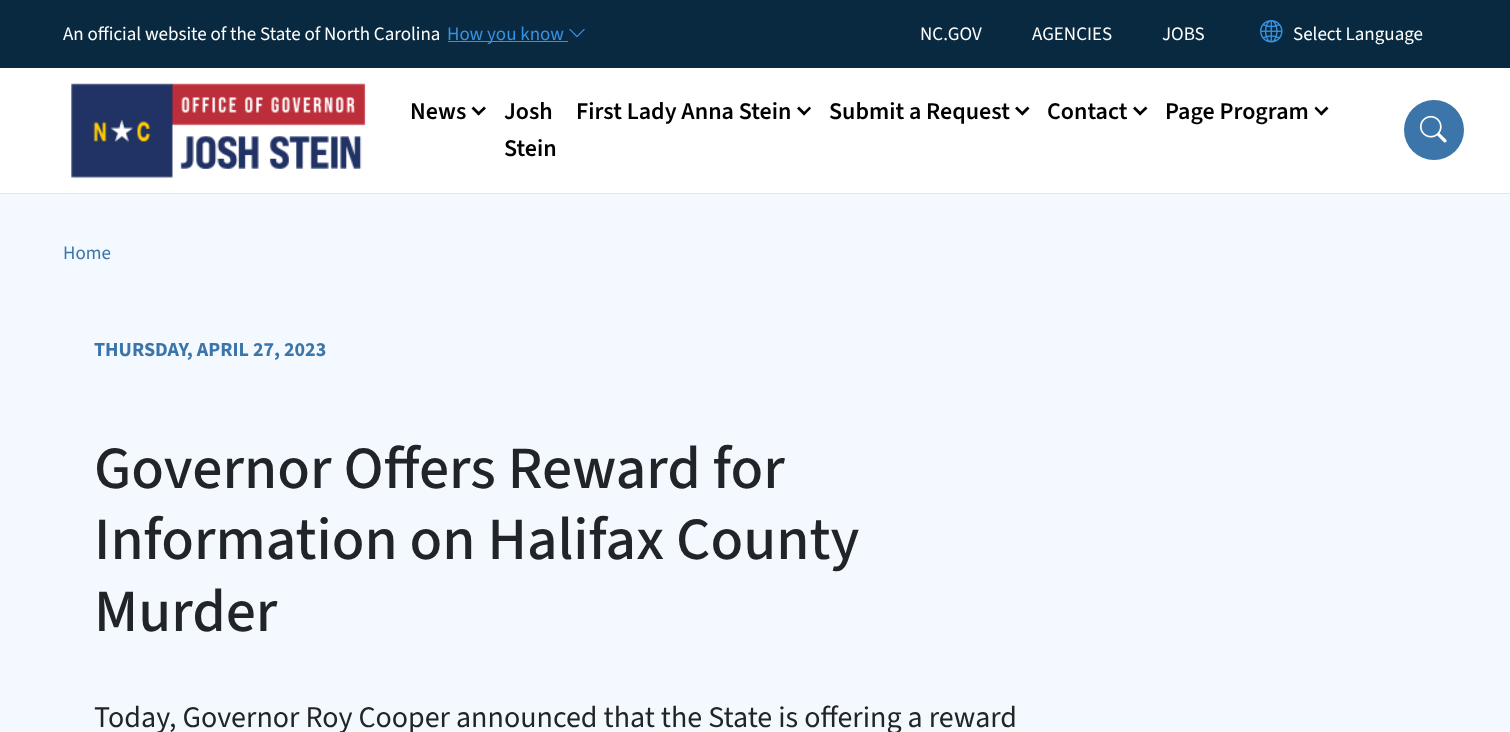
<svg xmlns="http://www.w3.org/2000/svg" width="1510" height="732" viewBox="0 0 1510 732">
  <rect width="100%" height="100%" fill="#ffffff"/>
  <rect x="0" y="193" width="1510" height="1" fill="#e5e5e5"/>
  <rect x="0" y="0" width="1510" height="68" fill="#092940"/>
  <text x="63" y="40" font-family="'Source Sans 3'" font-size="19" fill="#ffffff">An official website of the State of North Carolina</text>
  <rect x="448" y="41" width="120" height="1" fill="#3892e1"/>
  <text x="447" y="40" font-family="'Source Sans 3'" font-size="19" fill="#3892e1">How you know</text>
  <image x="569" y="28" width="16" height="10" href="img1.png"/>
  <text x="920" y="40" font-family="'Source Sans 3'" font-size="19" fill="#ffffff">NC.GOV</text>
  <text x="1032" y="40" font-family="'Source Sans 3'" font-size="19" fill="#ffffff">AGENCIES</text>
  <text x="1162" y="40" font-family="'Source Sans 3'" font-size="19" fill="#ffffff">JOBS</text>
  <image x="1260" y="20" width="23" height="23" href="img2.png"/>
  <text x="1293" y="40" font-family="'Source Sans 3'" font-size="19" fill="#ffffff">Select Language</text>
  <image x="71" y="83" width="295" height="95" href="img3.png"/>
  <text x="410" y="119" font-family="'Source Sans 3'" font-size="24" font-weight="600" fill="#000000">News</text>
  <path d="M484 106.5L486 108.5L478.5 115.5L477 113.5Z" fill="#000000"/>
  <path d="M473.5 106.5L480.5 113.5L478.5 115.5L471.5 108.5Z" fill="#000000"/>
  <text x="504" y="119" font-family="'Source Sans 3'" font-size="24" font-weight="600" fill="#000000">Josh</text>
  <text x="504" y="156" font-family="'Source Sans 3'" font-size="24" font-weight="600" fill="#000000">Stein</text>
  <text x="576" y="119" font-family="'Source Sans 3'" font-size="24" font-weight="600" fill="#000000">First Lady Anna Stein</text>
  <path d="M809.5 106.5L811 108.5L804 115.5L802.5 113.5Z" fill="#000000"/>
  <path d="M799 106.5L806 113.5L804 115.5L797 108.5Z" fill="#000000"/>
  <text x="829" y="119" font-family="'Source Sans 3'" font-size="24" font-weight="600" fill="#000000">Submit a Request</text>
  <path d="M1027.5 106.5L1029.5 108.5L1022.5 115.5L1020.5 113.5Z" fill="#000000"/>
  <path d="M1017 106.5L1024 113.5L1022.5 115.5L1015 108.5Z" fill="#000000"/>
  <text x="1047" y="119" font-family="'Source Sans 3'" font-size="24" font-weight="600" fill="#000000">Contact</text>
  <path d="M1145.5 106.5L1147.5 108.5L1140 115.5L1138.5 113.5Z" fill="#000000"/>
  <path d="M1135 106.5L1142 113.5L1140 115.5L1133 108.5Z" fill="#000000"/>
  <text x="1165" y="119" font-family="'Source Sans 3'" font-size="24" font-weight="600" fill="#000000">Page Program</text>
  <path d="M1326.5 106.5L1328.5 108.5L1321.5 115.5L1319.5 113.5Z" fill="#000000"/>
  <path d="M1316 106.5L1323 113.5L1321.5 115.5L1314.5 108.5Z" fill="#000000"/>
  <circle cx="1434" cy="130" r="30" fill="#3b75a9"/>
  <image x="1420" y="115" width="27" height="28" href="img4.png"/>
  <rect x="0" y="194" width="1510" height="538" fill="#f3f9ff"/>
  <text x="63" y="259" font-family="'Source Sans 3'" font-size="19" fill="#3b75a9">Home</text>
  <text x="94" y="356" font-family="'Source Sans 3'" font-size="20" font-weight="bold" fill="#3b75a9">THURSDAY, APRIL 27, 2023</text>
  <text x="94" y="488" font-family="'Source Sans 3'" font-size="60" font-weight="500" fill="#212529">Governor Offers Reward for</text>
  <text x="94" y="559" font-family="'Source Sans 3'" font-size="60" font-weight="500" fill="#212529">Information on Halifax County</text>
  <text x="94" y="631" font-family="'Source Sans 3'" font-size="60" font-weight="500" fill="#212529">Murder</text>
  <text x="94" y="727" font-family="'Source Sans 3'" font-size="30" fill="#212529">Today, Governor Roy Cooper announced that the State is offering a reward</text>
</svg>
